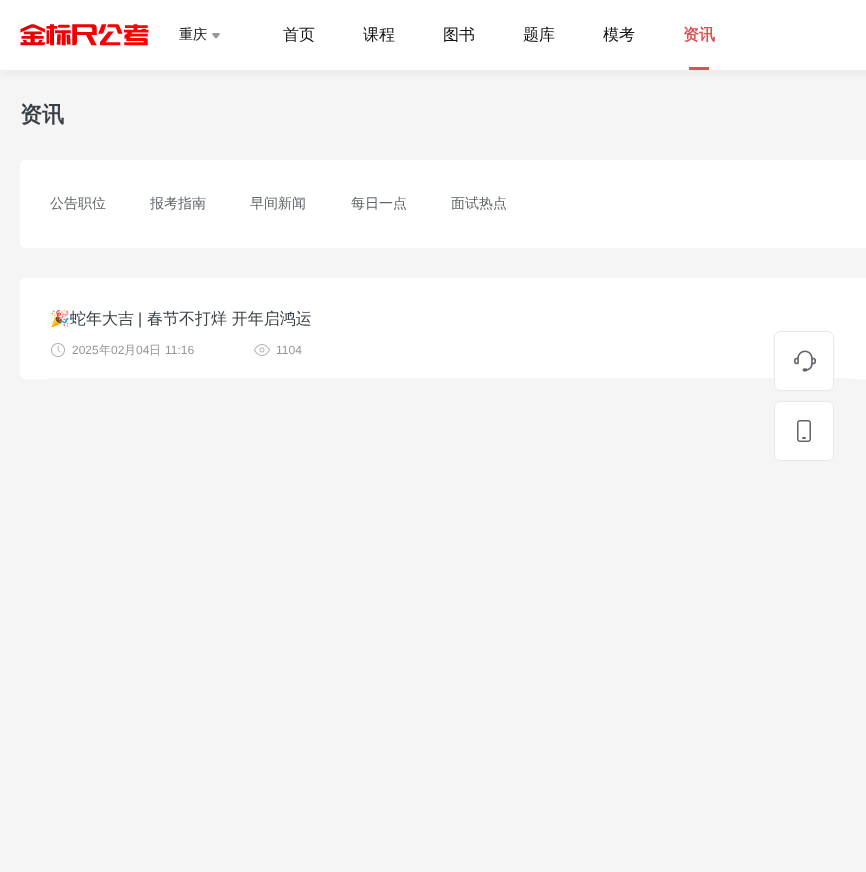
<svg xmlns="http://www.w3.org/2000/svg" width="866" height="872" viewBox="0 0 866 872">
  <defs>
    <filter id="blur1" x="-50%" y="-200%" width="200%" height="500%"><feGaussianBlur stdDeviation="5"/></filter>
  </defs>
  <rect width="100%" height="100%" fill="#f5f5f5"/>
  <rect x="0" y="2" width="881" height="70" fill="#2f3338" fill-opacity="0.08" filter="url(#blur1)"/>
  <rect x="0" y="0" width="866" height="70" fill="#ffffff"/>
  <image x="20" y="24" width="129" height="22" href="img1.png"/>
  <text x="179" y="39" font-family="WenQuanYi Zen Hei" font-size="14" font-weight="500" fill="#121314">重庆</text>
  <image x="212" y="33" width="8" height="6" href="img2.png"/>
  <text x="283" y="40" font-family="WenQuanYi Zen Hei" font-size="16" font-weight="500" fill="#121314">首页</text>
  <text x="363" y="40" font-family="WenQuanYi Zen Hei" font-size="16" font-weight="500" fill="#121314">课程</text>
  <text x="443" y="40" font-family="WenQuanYi Zen Hei" font-size="16" font-weight="500" fill="#121314">图书</text>
  <text x="523" y="40" font-family="WenQuanYi Zen Hei" font-size="16" font-weight="500" fill="#121314">题库</text>
  <text x="603" y="40" font-family="WenQuanYi Zen Hei" font-size="16" font-weight="500" fill="#121314">模考</text>
  <text x="683" y="40" font-family="WenQuanYi Zen Hei" font-size="16" font-weight="bold" fill="#dc5254">资讯</text>
  <rect x="689" y="67" width="20" height="3" fill="#dc5254"/>
  <text x="20" y="122" font-family="WenQuanYi Zen Hei" font-size="22" font-weight="bold" fill="#393f47">资讯</text>
  <rect x="20" y="160" width="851" height="88" rx="5" fill="#ffffff"/>
  <text x="50" y="208" font-family="WenQuanYi Zen Hei" font-size="14" font-weight="500" fill="#60656b">公告职位</text>
  <text x="150" y="208" font-family="WenQuanYi Zen Hei" font-size="14" font-weight="500" fill="#60656b">报考指南</text>
  <text x="250" y="208" font-family="WenQuanYi Zen Hei" font-size="14" font-weight="500" fill="#60656b">早间新闻</text>
  <text x="351" y="208" font-family="WenQuanYi Zen Hei" font-size="14" font-weight="500" fill="#60656b">每日一点</text>
  <text x="451" y="208" font-family="WenQuanYi Zen Hei" font-size="14" font-weight="500" fill="#60656b">面试热点</text>
  <rect x="20" y="278" width="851" height="101" rx="5" fill="#ffffff"/>
  <rect x="50" y="378" width="800" height="1" fill="#f5f5f5"/>
  <text x="50" y="324" font-family="Noto Color Emoji" font-size="16" fill="#393f47">🎉</text>
  <text x="70" y="324" font-family="WenQuanYi Zen Hei" font-size="16" font-weight="500" fill="#393f47">蛇年大吉</text>
  <text x="138" y="324" font-family="Liberation Sans" font-size="16" fill="#393f47">|</text>
  <text x="147" y="324" font-family="WenQuanYi Zen Hei" font-size="16" font-weight="500" fill="#393f47">春节不打烊 开年启鸿运</text>
  <image x="51" y="343" width="14" height="14" href="img3.png"/>
  <text x="72" y="354" font-family="Liberation Sans" font-size="12" fill="#949699">2025</text>
  <text x="99" y="354" font-family="WenQuanYi Zen Hei" font-size="12" font-weight="500" fill="#949699">年</text>
  <text x="111" y="354" font-family="Liberation Sans" font-size="12" fill="#949699">02</text>
  <text x="124" y="354" font-family="WenQuanYi Zen Hei" font-size="12" font-weight="500" fill="#949699">月</text>
  <text x="136" y="354" font-family="Liberation Sans" font-size="12" fill="#949699">04</text>
  <text x="149" y="354" font-family="WenQuanYi Zen Hei" font-size="12" font-weight="500" fill="#949699">日</text>
  <text x="165" y="354" font-family="Liberation Sans" font-size="12" fill="#949699">11:16</text>
  <image x="254" y="344" width="16" height="12" href="img4.png"/>
  <text x="276" y="354" font-family="Liberation Sans" font-size="12" fill="#949699">1104</text>
  <rect x="774.5" y="331.5" width="59" height="59" rx="5.5" fill="#ffffff" stroke="#e6e9eb"/>
  <image x="794" y="350" width="22" height="22" href="img5.png"/>
  <rect x="774.5" y="401.5" width="59" height="59" rx="5.5" fill="#ffffff" stroke="#e6e9eb"/>
  <image x="797" y="420" width="14" height="22" href="img6.png"/>
</svg>
